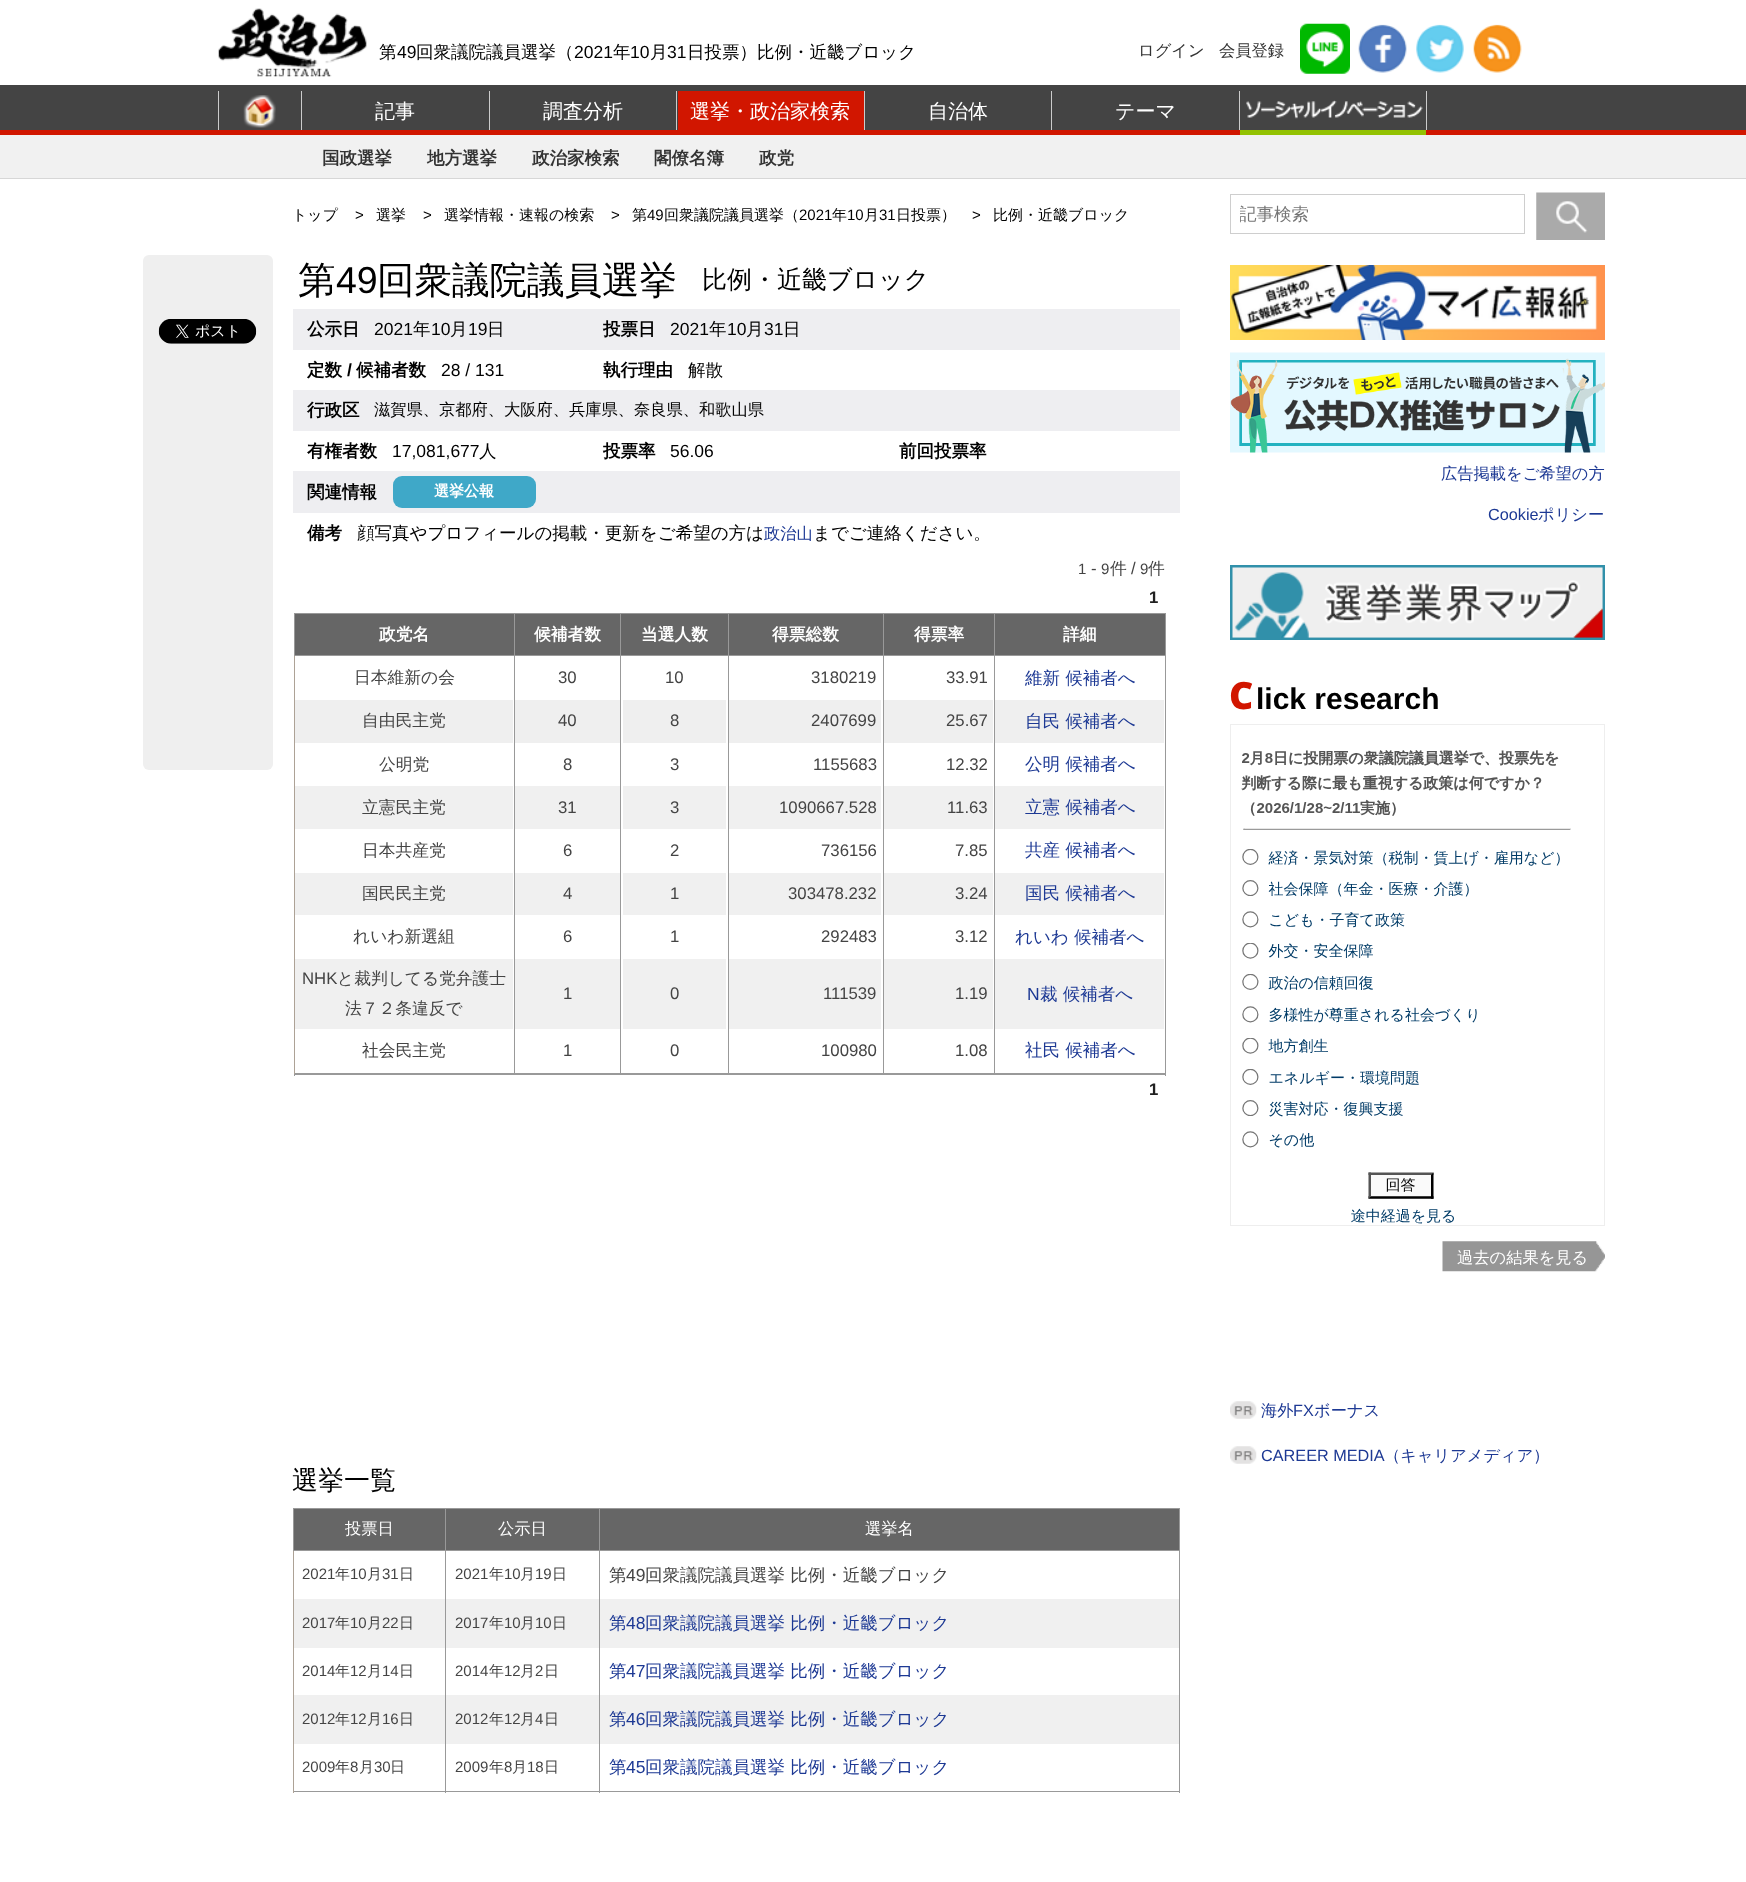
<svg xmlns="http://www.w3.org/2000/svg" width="1746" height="1882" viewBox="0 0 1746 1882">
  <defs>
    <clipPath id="clip1"><rect x="1240" y="204" width="275" height="22"/></clipPath>
  </defs>
  <rect width="100%" height="100%" fill="#ffffff"/>
  <image x="218" y="8" width="149" height="69" href="img1.png"/>
  <text x="379" y="58" font-family="WenQuanYi Zen Hei" font-size="17.5" font-weight="500" fill="#000000">第</text>
  <text x="397" y="58" font-family="Liberation Sans" font-size="17.5" fill="#000000">49</text>
  <text x="416" y="58" font-family="WenQuanYi Zen Hei" font-size="17.5" font-weight="500" fill="#000000">回衆議院議員選挙（</text>
  <text x="574" y="58" font-family="Liberation Sans" font-size="17.5" fill="#000000">2021</text>
  <text x="613" y="58" font-family="WenQuanYi Zen Hei" font-size="17.5" font-weight="500" fill="#000000">年</text>
  <text x="630" y="58" font-family="Liberation Sans" font-size="17.5" fill="#000000">10</text>
  <text x="650" y="58" font-family="WenQuanYi Zen Hei" font-size="17.5" font-weight="500" fill="#000000">月</text>
  <text x="667" y="58" font-family="Liberation Sans" font-size="17.5" fill="#000000">31</text>
  <text x="687" y="58" font-family="WenQuanYi Zen Hei" font-size="17.5" font-weight="500" fill="#000000">日投票）比例・近畿ブロック</text>
  <text x="1138" y="56" font-family="WenQuanYi Zen Hei" font-size="16.25" font-weight="500" fill="#333333">ログイン</text>
  <text x="1219" y="56" font-family="WenQuanYi Zen Hei" font-size="16.25" font-weight="500" fill="#333333">会員登録</text>
  <image x="1300" y="23" width="50" height="51" href="img2.png"/>
  <image x="1358" y="24" width="49" height="49" href="img3.png"/>
  <image x="1416" y="24" width="48" height="49" href="img4.png"/>
  <image x="1473" y="24" width="49" height="49" href="img5.png"/>
  <rect x="0" y="85" width="1746" height="45" fill="#444444"/>
  <rect x="0" y="130" width="1746" height="5" fill="#d11600"/>
  <rect x="301" y="91" width="1" height="39" fill="#cccccc"/>
  <rect x="218" y="91" width="1" height="39" fill="#cccccc"/>
  <image x="243" y="95" width="33" height="33" href="img6.png"/>
  <rect x="489" y="91" width="1" height="39" fill="#cccccc"/>
  <text x="375" y="118" font-family="WenQuanYi Zen Hei" font-size="20" font-weight="500" fill="#ffffff">記事</text>
  <rect x="676" y="91" width="1" height="39" fill="#cccccc"/>
  <text x="543" y="118" font-family="WenQuanYi Zen Hei" font-size="20" font-weight="500" fill="#ffffff">調査分析</text>
  <rect x="678" y="91" width="187" height="39" fill="#d11600"/>
  <rect x="864" y="91" width="1" height="39" fill="#cccccc"/>
  <text x="690" y="118" font-family="WenQuanYi Zen Hei" font-size="20" font-weight="500" fill="#ffffff">選挙・政治家検索</text>
  <rect x="1051" y="91" width="1" height="39" fill="#cccccc"/>
  <text x="928" y="118" font-family="WenQuanYi Zen Hei" font-size="20" font-weight="500" fill="#ffffff">自治体</text>
  <rect x="1239" y="91" width="1" height="39" fill="#cccccc"/>
  <text x="1115" y="118" font-family="WenQuanYi Zen Hei" font-size="20" font-weight="500" fill="#ffffff">テーマ</text>
  <rect x="1426" y="91" width="1" height="39" fill="#cccccc"/>
  <rect x="1240" y="130" width="186" height="5" fill="#93c202"/>
  <image x="1246" y="100" width="177" height="19" href="img7.png"/>
  <rect x="0" y="135" width="1746" height="43" fill="#f1f1f1"/>
  <rect x="0" y="178" width="1746" height="1" fill="#d7d7d7"/>
  <text x="322" y="164" font-family="WenQuanYi Zen Hei" font-size="17.5" font-weight="bold" fill="#333333">国政選挙</text>
  <text x="427" y="164" font-family="WenQuanYi Zen Hei" font-size="17.5" font-weight="bold" fill="#333333">地方選挙</text>
  <text x="532" y="164" font-family="WenQuanYi Zen Hei" font-size="17.5" font-weight="bold" fill="#333333">政治家検索</text>
  <text x="654" y="164" font-family="WenQuanYi Zen Hei" font-size="17.5" font-weight="bold" fill="#333333">閣僚名簿</text>
  <text x="759" y="164" font-family="WenQuanYi Zen Hei" font-size="17.5" font-weight="bold" fill="#333333">政党</text>
  <rect x="143" y="255" width="130" height="515" rx="6" fill="#efefef"/>
  <image x="158" y="319" width="99" height="25" href="img8.png"/>
  <text x="292" y="220" font-family="WenQuanYi Zen Hei" font-size="15" font-weight="500" fill="#000000">トップ</text>
  <text x="355" y="220" font-family="Liberation Sans" font-size="15" fill="#000000">&gt;</text>
  <text x="376" y="220" font-family="WenQuanYi Zen Hei" font-size="15" font-weight="500" fill="#000000">選挙</text>
  <text x="423" y="220" font-family="Liberation Sans" font-size="15" fill="#000000">&gt;</text>
  <text x="444" y="220" font-family="WenQuanYi Zen Hei" font-size="15" font-weight="500" fill="#000000">選挙情報・速報の検索</text>
  <text x="611" y="220" font-family="Liberation Sans" font-size="15" fill="#000000">&gt;</text>
  <text x="632" y="220" font-family="WenQuanYi Zen Hei" font-size="15" font-weight="500" fill="#000000">第</text>
  <text x="647" y="220" font-family="Liberation Sans" font-size="15" fill="#000000">49</text>
  <text x="664" y="220" font-family="WenQuanYi Zen Hei" font-size="15" font-weight="500" fill="#000000">回衆議院議員選挙（</text>
  <text x="799" y="220" font-family="Liberation Sans" font-size="15" fill="#000000">2021</text>
  <text x="832" y="220" font-family="WenQuanYi Zen Hei" font-size="15" font-weight="500" fill="#000000">年</text>
  <text x="847" y="220" font-family="Liberation Sans" font-size="15" fill="#000000">10</text>
  <text x="864" y="220" font-family="WenQuanYi Zen Hei" font-size="15" font-weight="500" fill="#000000">月</text>
  <text x="879" y="220" font-family="Liberation Sans" font-size="15" fill="#000000">31</text>
  <text x="896" y="220" font-family="WenQuanYi Zen Hei" font-size="15" font-weight="500" fill="#000000">日投票）</text>
  <text x="972" y="220" font-family="Liberation Sans" font-size="15" fill="#000000">&gt;</text>
  <text x="993" y="220" font-family="WenQuanYi Zen Hei" font-size="15" font-weight="500" fill="#000000">比例・近畿ブロック</text>
  <text x="298" y="293" font-family="WenQuanYi Zen Hei" font-size="37.5" font-weight="500" fill="#000000">第</text>
  <text x="336" y="293" font-family="Liberation Sans" font-size="37.5" fill="#000000">49</text>
  <text x="377" y="293" font-family="WenQuanYi Zen Hei" font-size="37.5" font-weight="500" fill="#000000">回衆議院議員選挙</text>
  <text x="702" y="288" font-family="WenQuanYi Zen Hei" font-size="25" font-weight="500" fill="#000000">比例・近畿ブロック</text>
  <rect x="293" y="309" width="887" height="41" fill="#eeeef1"/>
  <text x="307" y="335" font-family="WenQuanYi Zen Hei" font-size="17.5" font-weight="bold" fill="#000000">公示日</text>
  <text x="374" y="335" font-family="Liberation Sans" font-size="17.5" fill="#000000">2021</text>
  <text x="413" y="335" font-family="WenQuanYi Zen Hei" font-size="17.5" font-weight="500" fill="#000000">年</text>
  <text x="431" y="335" font-family="Liberation Sans" font-size="17.5" fill="#000000">10</text>
  <text x="450" y="335" font-family="WenQuanYi Zen Hei" font-size="17.5" font-weight="500" fill="#000000">月</text>
  <text x="468" y="335" font-family="Liberation Sans" font-size="17.5" fill="#000000">19</text>
  <text x="487" y="335" font-family="WenQuanYi Zen Hei" font-size="17.5" font-weight="500" fill="#000000">日</text>
  <text x="603" y="335" font-family="WenQuanYi Zen Hei" font-size="17.5" font-weight="bold" fill="#000000">投票日</text>
  <text x="670" y="335" font-family="Liberation Sans" font-size="17.5" fill="#000000">2021</text>
  <text x="709" y="335" font-family="WenQuanYi Zen Hei" font-size="17.5" font-weight="500" fill="#000000">年</text>
  <text x="727" y="335" font-family="Liberation Sans" font-size="17.5" fill="#000000">10</text>
  <text x="746" y="335" font-family="WenQuanYi Zen Hei" font-size="17.5" font-weight="500" fill="#000000">月</text>
  <text x="764" y="335" font-family="Liberation Sans" font-size="17.5" fill="#000000">31</text>
  <text x="783" y="335" font-family="WenQuanYi Zen Hei" font-size="17.5" font-weight="500" fill="#000000">日</text>
  <text x="307" y="376" font-family="WenQuanYi Zen Hei" font-size="17.5" font-weight="bold" fill="#000000">定数</text>
  <text x="347" y="376" font-family="Liberation Sans" font-size="17.5" font-weight="bold" fill="#000000">/</text>
  <text x="356" y="376" font-family="WenQuanYi Zen Hei" font-size="17.5" font-weight="bold" fill="#000000">候補者数</text>
  <text x="441" y="376" font-family="Liberation Sans" font-size="17.5" fill="#000000">28 / 131</text>
  <text x="603" y="376" font-family="WenQuanYi Zen Hei" font-size="17.5" font-weight="bold" fill="#000000">執行理由</text>
  <text x="688" y="376" font-family="WenQuanYi Zen Hei" font-size="17.5" font-weight="500" fill="#000000">解散</text>
  <rect x="293" y="390" width="887" height="41" fill="#eeeef1"/>
  <text x="307" y="416" font-family="WenQuanYi Zen Hei" font-size="17.5" font-weight="bold" fill="#000000">行政区</text>
  <text x="374" y="415" font-family="WenQuanYi Zen Hei" font-size="16.25" font-weight="500" fill="#000000">滋賀県、京都府、大阪府、兵庫県、奈良県、和歌山県</text>
  <text x="307" y="457" font-family="WenQuanYi Zen Hei" font-size="17.5" font-weight="bold" fill="#000000">有権者数</text>
  <text x="392" y="457" font-family="Liberation Sans" font-size="17.5" fill="#000000">17,081,677</text>
  <text x="479" y="457" font-family="WenQuanYi Zen Hei" font-size="17.5" font-weight="500" fill="#000000">人</text>
  <text x="603" y="457" font-family="WenQuanYi Zen Hei" font-size="17.5" font-weight="bold" fill="#000000">投票率</text>
  <text x="670" y="457" font-family="Liberation Sans" font-size="17.5" fill="#000000">56.06</text>
  <text x="899" y="457" font-family="WenQuanYi Zen Hei" font-size="17.5" font-weight="bold" fill="#000000">前回投票率</text>
  <rect x="293" y="471" width="887" height="42" fill="#eeeef1"/>
  <text x="307" y="498" font-family="WenQuanYi Zen Hei" font-size="17.5" font-weight="bold" fill="#000000">関連情報</text>
  <rect x="393" y="476" width="143" height="32" rx="9" fill="#3fa8c8"/>
  <text x="434" y="496" font-family="WenQuanYi Zen Hei" font-size="15" font-weight="bold" fill="#ffffff">選挙公報</text>
  <text x="307" y="539" font-family="WenQuanYi Zen Hei" font-size="17.5" font-weight="bold" fill="#000000">備考</text>
  <text x="357" y="539" font-family="WenQuanYi Zen Hei" font-size="17.5" font-weight="500" fill="#000000">顔写真やプロフィールの掲載・更新をご希望の方は</text>
  <text x="764" y="539" font-family="WenQuanYi Zen Hei" font-size="16.25" font-weight="500" fill="#1d3994">政治山</text>
  <text x="813" y="539" font-family="WenQuanYi Zen Hei" font-size="17.5" font-weight="500" fill="#000000">までご連絡ください。</text>
  <text x="1078" y="574" font-family="Liberation Sans" font-size="15" fill="#444444">1</text>
  <text x="1091" y="574" font-family="Liberation Sans" font-size="16.75" fill="#444444">-</text>
  <text x="1101" y="574" font-family="Liberation Sans" font-size="15" fill="#444444">9</text>
  <text x="1110" y="574" font-family="WenQuanYi Zen Hei" font-size="16.75" font-weight="500" fill="#444444">件</text>
  <text x="1131" y="574" font-family="Liberation Sans" font-size="16.75" fill="#444444">/</text>
  <text x="1140" y="574" font-family="Liberation Sans" font-size="15" fill="#444444">9</text>
  <text x="1148" y="574" font-family="WenQuanYi Zen Hei" font-size="16.75" font-weight="500" fill="#444444">件</text>
  <text x="1149" y="603" font-family="Liberation Sans" font-size="16.75" font-weight="bold" fill="#202020">1</text>
  <rect x="294" y="1073" width="872" height="1" fill="#999999"/>
  <rect x="1165" y="613" width="1" height="463" fill="#999999"/>
  <rect x="294" y="1074" width="872" height="1" fill="#999999"/>
  <rect x="294" y="1073" width="1" height="3" fill="#999999"/>
  <rect x="295" y="614" width="219" height="41" fill="#666666"/>
  <rect x="994" y="613" width="172" height="1" fill="#999999"/>
  <rect x="994" y="655" width="1" height="419" fill="#999999"/>
  <rect x="994" y="655" width="172" height="1" fill="#999999"/>
  <rect x="994" y="613" width="1" height="43" fill="#999999"/>
  <rect x="883" y="613" width="112" height="1" fill="#999999"/>
  <rect x="883" y="655" width="1" height="419" fill="#999999"/>
  <rect x="883" y="655" width="112" height="1" fill="#999999"/>
  <rect x="883" y="613" width="1" height="43" fill="#999999"/>
  <rect x="728" y="613" width="156" height="1" fill="#999999"/>
  <rect x="728" y="655" width="1" height="419" fill="#999999"/>
  <rect x="728" y="655" width="156" height="1" fill="#999999"/>
  <rect x="728" y="613" width="1" height="43" fill="#999999"/>
  <rect x="620" y="613" width="109" height="1" fill="#999999"/>
  <rect x="620" y="655" width="1" height="419" fill="#999999"/>
  <rect x="620" y="655" width="109" height="1" fill="#999999"/>
  <rect x="620" y="613" width="1" height="43" fill="#999999"/>
  <rect x="514" y="613" width="107" height="1" fill="#999999"/>
  <rect x="514" y="655" width="1" height="419" fill="#999999"/>
  <rect x="514" y="655" width="107" height="1" fill="#999999"/>
  <rect x="514" y="613" width="1" height="43" fill="#999999"/>
  <rect x="294" y="613" width="221" height="1" fill="#999999"/>
  <rect x="294" y="655" width="1" height="419" fill="#ada296"/>
  <rect x="294" y="655" width="221" height="1" fill="#999999"/>
  <rect x="294" y="613" width="1" height="43" fill="#999999"/>
  <text x="379" y="640" font-family="WenQuanYi Zen Hei" font-size="16.75" font-weight="bold" fill="#ffffff">政党名</text>
  <rect x="515" y="614" width="105" height="41" fill="#666666"/>
  <text x="534" y="640" font-family="WenQuanYi Zen Hei" font-size="16.75" font-weight="bold" fill="#ffffff">候補者数</text>
  <rect x="621" y="614" width="107" height="41" fill="#666666"/>
  <text x="641" y="640" font-family="WenQuanYi Zen Hei" font-size="16.75" font-weight="bold" fill="#ffffff">当選人数</text>
  <rect x="729" y="614" width="154" height="41" fill="#666666"/>
  <text x="772" y="640" font-family="WenQuanYi Zen Hei" font-size="16.75" font-weight="bold" fill="#ffffff">得票総数</text>
  <rect x="884" y="614" width="110" height="41" fill="#666666"/>
  <text x="914" y="640" font-family="WenQuanYi Zen Hei" font-size="16.75" font-weight="bold" fill="#ffffff">得票率</text>
  <rect x="995" y="614" width="170" height="41" fill="#666666"/>
  <text x="1063" y="640" font-family="WenQuanYi Zen Hei" font-size="16.75" font-weight="bold" fill="#ffffff">詳細</text>
  <text x="354" y="683" font-family="WenQuanYi Zen Hei" font-size="16.75" font-weight="500" fill="#444444">日本維新の会</text>
  <text x="558" y="683" font-family="Liberation Sans" font-size="16.75" fill="#444444">30</text>
  <text x="665" y="683" font-family="Liberation Sans" font-size="16.75" fill="#444444">10</text>
  <text x="811" y="683" font-family="Liberation Sans" font-size="16.75" fill="#444444">3180219</text>
  <text x="946" y="683" font-family="Liberation Sans" font-size="16.75" fill="#444444">33.91</text>
  <text x="1025" y="684" font-family="WenQuanYi Zen Hei" font-size="17.5" font-weight="500" fill="#1d3994">維新 候補者へ</text>
  <rect x="295" y="700" width="218" height="43" fill="#efefef"/>
  <text x="362" y="726" font-family="WenQuanYi Zen Hei" font-size="16.75" font-weight="500" fill="#444444">自由民主党</text>
  <rect x="515" y="700" width="105" height="43" fill="#efefef"/>
  <text x="558" y="726" font-family="Liberation Sans" font-size="16.75" fill="#444444">40</text>
  <rect x="623" y="700" width="103" height="43" fill="#efefef"/>
  <text x="670" y="726" font-family="Liberation Sans" font-size="16.75" fill="#444444">8</text>
  <rect x="729" y="700" width="152" height="43" fill="#efefef"/>
  <text x="811" y="726" font-family="Liberation Sans" font-size="16.75" fill="#444444">2407699</text>
  <rect x="884" y="700" width="109" height="43" fill="#efefef"/>
  <text x="946" y="726" font-family="Liberation Sans" font-size="16.75" fill="#444444">25.67</text>
  <rect x="995" y="700" width="169" height="43" fill="#efefef"/>
  <text x="1025" y="727" font-family="WenQuanYi Zen Hei" font-size="17.5" font-weight="500" fill="#1d3994">自民 候補者へ</text>
  <text x="379" y="770" font-family="WenQuanYi Zen Hei" font-size="16.75" font-weight="500" fill="#444444">公明党</text>
  <text x="563" y="770" font-family="Liberation Sans" font-size="16.75" fill="#444444">8</text>
  <text x="670" y="770" font-family="Liberation Sans" font-size="16.75" fill="#444444">3</text>
  <text x="813" y="770" font-family="Liberation Sans" font-size="16.75" fill="#444444">1155683</text>
  <text x="946" y="770" font-family="Liberation Sans" font-size="16.75" fill="#444444">12.32</text>
  <text x="1025" y="770" font-family="WenQuanYi Zen Hei" font-size="17.5" font-weight="500" fill="#1d3994">公明 候補者へ</text>
  <rect x="295" y="786" width="218" height="43" fill="#f0f0f0"/>
  <text x="362" y="813" font-family="WenQuanYi Zen Hei" font-size="16.75" font-weight="500" fill="#444444">立憲民主党</text>
  <rect x="515" y="786" width="105" height="43" fill="#f0f0f0"/>
  <text x="558" y="813" font-family="Liberation Sans" font-size="16.75" fill="#444444">31</text>
  <rect x="623" y="786" width="103" height="43" fill="#f0f0f0"/>
  <text x="670" y="813" font-family="Liberation Sans" font-size="16.75" fill="#444444">3</text>
  <rect x="729" y="786" width="152" height="43" fill="#f0f0f0"/>
  <text x="779" y="813" font-family="Liberation Sans" font-size="16.75" fill="#444444">1090667.528</text>
  <rect x="884" y="786" width="109" height="43" fill="#f0f0f0"/>
  <text x="947" y="813" font-family="Liberation Sans" font-size="16.75" fill="#444444">11.63</text>
  <rect x="995" y="786" width="169" height="43" fill="#f0f0f0"/>
  <text x="1025" y="813" font-family="WenQuanYi Zen Hei" font-size="17.5" font-weight="500" fill="#1d3994">立憲 候補者へ</text>
  <text x="362" y="856" font-family="WenQuanYi Zen Hei" font-size="16.75" font-weight="500" fill="#444444">日本共産党</text>
  <text x="563" y="856" font-family="Liberation Sans" font-size="16.75" fill="#444444">6</text>
  <text x="670" y="856" font-family="Liberation Sans" font-size="16.75" fill="#444444">2</text>
  <text x="821" y="856" font-family="Liberation Sans" font-size="16.75" fill="#444444">736156</text>
  <text x="955" y="856" font-family="Liberation Sans" font-size="16.75" fill="#444444">7.85</text>
  <text x="1025" y="856" font-family="WenQuanYi Zen Hei" font-size="17.5" font-weight="500" fill="#1d3994">共産 候補者へ</text>
  <rect x="295" y="873" width="218" height="42" fill="#f0f0f0"/>
  <text x="362" y="899" font-family="WenQuanYi Zen Hei" font-size="16.75" font-weight="500" fill="#444444">国民民主党</text>
  <rect x="515" y="873" width="105" height="42" fill="#f0f0f0"/>
  <text x="563" y="899" font-family="Liberation Sans" font-size="16.75" fill="#444444">4</text>
  <rect x="623" y="873" width="103" height="42" fill="#f0f0f0"/>
  <text x="670" y="899" font-family="Liberation Sans" font-size="16.75" fill="#444444">1</text>
  <rect x="729" y="873" width="152" height="42" fill="#f0f0f0"/>
  <text x="788" y="899" font-family="Liberation Sans" font-size="16.75" fill="#444444">303478.232</text>
  <rect x="884" y="873" width="109" height="42" fill="#f0f0f0"/>
  <text x="955" y="899" font-family="Liberation Sans" font-size="16.75" fill="#444444">3.24</text>
  <rect x="995" y="873" width="169" height="42" fill="#f0f0f0"/>
  <text x="1025" y="899" font-family="WenQuanYi Zen Hei" font-size="17.5" font-weight="500" fill="#1d3994">国民 候補者へ</text>
  <text x="353" y="942" font-family="WenQuanYi Zen Hei" font-size="16.75" font-weight="500" fill="#444444">れいわ新選組</text>
  <text x="563" y="942" font-family="Liberation Sans" font-size="16.75" fill="#444444">6</text>
  <text x="670" y="942" font-family="Liberation Sans" font-size="16.75" fill="#444444">1</text>
  <text x="821" y="942" font-family="Liberation Sans" font-size="16.75" fill="#444444">292483</text>
  <text x="955" y="942" font-family="Liberation Sans" font-size="16.75" fill="#444444">3.12</text>
  <text x="1015" y="943" font-family="WenQuanYi Zen Hei" font-size="17.5" font-weight="500" fill="#1d3994">れいわ 候補者へ</text>
  <rect x="295" y="959" width="218" height="70" fill="#f0f0f0"/>
  <text x="302" y="984" font-family="Liberation Sans" font-size="16.75" fill="#444444">NHK</text>
  <text x="337" y="984" font-family="WenQuanYi Zen Hei" font-size="16.75" font-weight="500" fill="#444444">と裁判してる党弁護士</text>
  <text x="345" y="1014" font-family="WenQuanYi Zen Hei" font-size="16.75" font-weight="500" fill="#444444">法７２条違反で</text>
  <rect x="515" y="959" width="105" height="70" fill="#f0f0f0"/>
  <text x="563" y="999" font-family="Liberation Sans" font-size="16.75" fill="#444444">1</text>
  <rect x="623" y="959" width="103" height="70" fill="#f0f0f0"/>
  <text x="670" y="999" font-family="Liberation Sans" font-size="16.75" fill="#444444">0</text>
  <rect x="729" y="959" width="152" height="70" fill="#f0f0f0"/>
  <text x="823" y="999" font-family="Liberation Sans" font-size="16.75" fill="#444444">111539</text>
  <rect x="884" y="959" width="109" height="70" fill="#f0f0f0"/>
  <text x="955" y="999" font-family="Liberation Sans" font-size="16.75" fill="#444444">1.19</text>
  <rect x="995" y="959" width="169" height="70" fill="#f0f0f0"/>
  <text x="1027" y="1000" font-family="Liberation Sans" font-size="17.5" fill="#1d3994">N</text>
  <text x="1040" y="1000" font-family="WenQuanYi Zen Hei" font-size="17.5" font-weight="500" fill="#1d3994">裁 候補者へ</text>
  <text x="362" y="1056" font-family="WenQuanYi Zen Hei" font-size="16.75" font-weight="500" fill="#444444">社会民主党</text>
  <text x="563" y="1056" font-family="Liberation Sans" font-size="16.75" fill="#444444">1</text>
  <text x="670" y="1056" font-family="Liberation Sans" font-size="16.75" fill="#444444">0</text>
  <text x="821" y="1056" font-family="Liberation Sans" font-size="16.75" fill="#444444">100980</text>
  <text x="955" y="1056" font-family="Liberation Sans" font-size="16.75" fill="#444444">1.08</text>
  <text x="1025" y="1056" font-family="WenQuanYi Zen Hei" font-size="17.5" font-weight="500" fill="#1d3994">社民 候補者へ</text>
  <text x="1149" y="1095" font-family="Liberation Sans" font-size="16.75" font-weight="bold" fill="#202020">1</text>
  <text x="292" y="1489" font-family="WenQuanYi Zen Hei" font-size="26" font-weight="500" fill="#000000">選挙一覧</text>
  <rect x="293" y="1791" width="887" height="1" fill="#999999"/>
  <rect x="294" y="1509" width="151" height="41" fill="#666666"/>
  <rect x="599" y="1508" width="581" height="1" fill="#999999"/>
  <rect x="1179" y="1550" width="1" height="243" fill="#999999"/>
  <rect x="1179" y="1508" width="1" height="43" fill="#999999"/>
  <rect x="294" y="1599" width="885" height="49" fill="#f0f0f0"/>
  <rect x="294" y="1695" width="885" height="49" fill="#f0f0f0"/>
  <rect x="599" y="1550" width="1" height="243" fill="#999999"/>
  <rect x="599" y="1550" width="581" height="1" fill="#999999"/>
  <rect x="599" y="1508" width="1" height="43" fill="#999999"/>
  <rect x="445" y="1508" width="155" height="1" fill="#999999"/>
  <rect x="445" y="1550" width="1" height="243" fill="#999999"/>
  <rect x="445" y="1550" width="155" height="1" fill="#999999"/>
  <rect x="445" y="1508" width="1" height="43" fill="#999999"/>
  <rect x="293" y="1508" width="153" height="1" fill="#999999"/>
  <rect x="293" y="1550" width="1" height="243" fill="#ada296"/>
  <rect x="293" y="1550" width="153" height="1" fill="#999999"/>
  <rect x="293" y="1508" width="1" height="43" fill="#999999"/>
  <text x="345" y="1534" font-family="WenQuanYi Zen Hei" font-size="16.25" font-weight="500" fill="#ffffff">投票日</text>
  <rect x="446" y="1509" width="153" height="41" fill="#666666"/>
  <text x="498" y="1534" font-family="WenQuanYi Zen Hei" font-size="16.25" font-weight="500" fill="#ffffff">公示日</text>
  <rect x="600" y="1509" width="579" height="41" fill="#666666"/>
  <text x="865" y="1534" font-family="WenQuanYi Zen Hei" font-size="16.25" font-weight="500" fill="#ffffff">選挙名</text>
  <text x="302" y="1579" font-family="Liberation Sans" font-size="15" fill="#444444">2021</text>
  <text x="335" y="1579" font-family="WenQuanYi Zen Hei" font-size="15" font-weight="500" fill="#444444">年</text>
  <text x="350" y="1579" font-family="Liberation Sans" font-size="15" fill="#444444">10</text>
  <text x="367" y="1579" font-family="WenQuanYi Zen Hei" font-size="15" font-weight="500" fill="#444444">月</text>
  <text x="382" y="1579" font-family="Liberation Sans" font-size="15" fill="#444444">31</text>
  <text x="399" y="1579" font-family="WenQuanYi Zen Hei" font-size="15" font-weight="500" fill="#444444">日</text>
  <text x="455" y="1579" font-family="Liberation Sans" font-size="15" fill="#444444">2021</text>
  <text x="489" y="1579" font-family="WenQuanYi Zen Hei" font-size="15" font-weight="500" fill="#444444">年</text>
  <text x="504" y="1579" font-family="Liberation Sans" font-size="15" fill="#444444">10</text>
  <text x="520" y="1579" font-family="WenQuanYi Zen Hei" font-size="15" font-weight="500" fill="#444444">月</text>
  <text x="535" y="1579" font-family="Liberation Sans" font-size="15" fill="#444444">19</text>
  <text x="552" y="1579" font-family="WenQuanYi Zen Hei" font-size="15" font-weight="500" fill="#444444">日</text>
  <text x="609" y="1581" font-family="WenQuanYi Zen Hei" font-size="17.5" font-weight="500" fill="#444444">第</text>
  <text x="626" y="1581" font-family="Liberation Sans" font-size="17.5" fill="#444444">49</text>
  <text x="645" y="1581" font-family="WenQuanYi Zen Hei" font-size="17.5" font-weight="500" fill="#444444">回衆議院議員選挙 比例・近畿ブロック</text>
  <text x="302" y="1628" font-family="Liberation Sans" font-size="15" fill="#444444">2017</text>
  <text x="335" y="1628" font-family="WenQuanYi Zen Hei" font-size="15" font-weight="500" fill="#444444">年</text>
  <text x="350" y="1628" font-family="Liberation Sans" font-size="15" fill="#444444">10</text>
  <text x="367" y="1628" font-family="WenQuanYi Zen Hei" font-size="15" font-weight="500" fill="#444444">月</text>
  <text x="382" y="1628" font-family="Liberation Sans" font-size="15" fill="#444444">22</text>
  <text x="399" y="1628" font-family="WenQuanYi Zen Hei" font-size="15" font-weight="500" fill="#444444">日</text>
  <text x="455" y="1628" font-family="Liberation Sans" font-size="15" fill="#444444">2017</text>
  <text x="489" y="1628" font-family="WenQuanYi Zen Hei" font-size="15" font-weight="500" fill="#444444">年</text>
  <text x="504" y="1628" font-family="Liberation Sans" font-size="15" fill="#444444">10</text>
  <text x="520" y="1628" font-family="WenQuanYi Zen Hei" font-size="15" font-weight="500" fill="#444444">月</text>
  <text x="535" y="1628" font-family="Liberation Sans" font-size="15" fill="#444444">10</text>
  <text x="552" y="1628" font-family="WenQuanYi Zen Hei" font-size="15" font-weight="500" fill="#444444">日</text>
  <text x="609" y="1629" font-family="WenQuanYi Zen Hei" font-size="17.5" font-weight="500" fill="#1d3994">第</text>
  <text x="626" y="1629" font-family="Liberation Sans" font-size="17.5" fill="#1d3994">48</text>
  <text x="645" y="1629" font-family="WenQuanYi Zen Hei" font-size="17.5" font-weight="500" fill="#1d3994">回衆議院議員選挙 比例・近畿ブロック</text>
  <text x="302" y="1676" font-family="Liberation Sans" font-size="15" fill="#444444">2014</text>
  <text x="335" y="1676" font-family="WenQuanYi Zen Hei" font-size="15" font-weight="500" fill="#444444">年</text>
  <text x="350" y="1676" font-family="Liberation Sans" font-size="15" fill="#444444">12</text>
  <text x="367" y="1676" font-family="WenQuanYi Zen Hei" font-size="15" font-weight="500" fill="#444444">月</text>
  <text x="382" y="1676" font-family="Liberation Sans" font-size="15" fill="#444444">14</text>
  <text x="399" y="1676" font-family="WenQuanYi Zen Hei" font-size="15" font-weight="500" fill="#444444">日</text>
  <text x="455" y="1676" font-family="Liberation Sans" font-size="15" fill="#444444">2014</text>
  <text x="489" y="1676" font-family="WenQuanYi Zen Hei" font-size="15" font-weight="500" fill="#444444">年</text>
  <text x="504" y="1676" font-family="Liberation Sans" font-size="15" fill="#444444">12</text>
  <text x="520" y="1676" font-family="WenQuanYi Zen Hei" font-size="15" font-weight="500" fill="#444444">月</text>
  <text x="535" y="1676" font-family="Liberation Sans" font-size="15" fill="#444444">2</text>
  <text x="544" y="1676" font-family="WenQuanYi Zen Hei" font-size="15" font-weight="500" fill="#444444">日</text>
  <text x="609" y="1677" font-family="WenQuanYi Zen Hei" font-size="17.5" font-weight="500" fill="#1d3994">第</text>
  <text x="626" y="1677" font-family="Liberation Sans" font-size="17.5" fill="#1d3994">47</text>
  <text x="645" y="1677" font-family="WenQuanYi Zen Hei" font-size="17.5" font-weight="500" fill="#1d3994">回衆議院議員選挙 比例・近畿ブロック</text>
  <text x="302" y="1724" font-family="Liberation Sans" font-size="15" fill="#444444">2012</text>
  <text x="335" y="1724" font-family="WenQuanYi Zen Hei" font-size="15" font-weight="500" fill="#444444">年</text>
  <text x="350" y="1724" font-family="Liberation Sans" font-size="15" fill="#444444">12</text>
  <text x="367" y="1724" font-family="WenQuanYi Zen Hei" font-size="15" font-weight="500" fill="#444444">月</text>
  <text x="382" y="1724" font-family="Liberation Sans" font-size="15" fill="#444444">16</text>
  <text x="399" y="1724" font-family="WenQuanYi Zen Hei" font-size="15" font-weight="500" fill="#444444">日</text>
  <text x="455" y="1724" font-family="Liberation Sans" font-size="15" fill="#444444">2012</text>
  <text x="489" y="1724" font-family="WenQuanYi Zen Hei" font-size="15" font-weight="500" fill="#444444">年</text>
  <text x="504" y="1724" font-family="Liberation Sans" font-size="15" fill="#444444">12</text>
  <text x="520" y="1724" font-family="WenQuanYi Zen Hei" font-size="15" font-weight="500" fill="#444444">月</text>
  <text x="535" y="1724" font-family="Liberation Sans" font-size="15" fill="#444444">4</text>
  <text x="544" y="1724" font-family="WenQuanYi Zen Hei" font-size="15" font-weight="500" fill="#444444">日</text>
  <text x="609" y="1725" font-family="WenQuanYi Zen Hei" font-size="17.5" font-weight="500" fill="#1d3994">第</text>
  <text x="626" y="1725" font-family="Liberation Sans" font-size="17.5" fill="#1d3994">46</text>
  <text x="645" y="1725" font-family="WenQuanYi Zen Hei" font-size="17.5" font-weight="500" fill="#1d3994">回衆議院議員選挙 比例・近畿ブロック</text>
  <text x="302" y="1772" font-family="Liberation Sans" font-size="15" fill="#444444">2009</text>
  <text x="335" y="1772" font-family="WenQuanYi Zen Hei" font-size="15" font-weight="500" fill="#444444">年</text>
  <text x="350" y="1772" font-family="Liberation Sans" font-size="15" fill="#444444">8</text>
  <text x="359" y="1772" font-family="WenQuanYi Zen Hei" font-size="15" font-weight="500" fill="#444444">月</text>
  <text x="374" y="1772" font-family="Liberation Sans" font-size="15" fill="#444444">30</text>
  <text x="390" y="1772" font-family="WenQuanYi Zen Hei" font-size="15" font-weight="500" fill="#444444">日</text>
  <text x="455" y="1772" font-family="Liberation Sans" font-size="15" fill="#444444">2009</text>
  <text x="489" y="1772" font-family="WenQuanYi Zen Hei" font-size="15" font-weight="500" fill="#444444">年</text>
  <text x="504" y="1772" font-family="Liberation Sans" font-size="15" fill="#444444">8</text>
  <text x="512" y="1772" font-family="WenQuanYi Zen Hei" font-size="15" font-weight="500" fill="#444444">月</text>
  <text x="527" y="1772" font-family="Liberation Sans" font-size="15" fill="#444444">18</text>
  <text x="544" y="1772" font-family="WenQuanYi Zen Hei" font-size="15" font-weight="500" fill="#444444">日</text>
  <text x="609" y="1773" font-family="WenQuanYi Zen Hei" font-size="17.5" font-weight="500" fill="#1d3994">第</text>
  <text x="626" y="1773" font-family="Liberation Sans" font-size="17.5" fill="#1d3994">45</text>
  <text x="645" y="1773" font-family="WenQuanYi Zen Hei" font-size="17.5" font-weight="500" fill="#1d3994">回衆議院議員選挙 比例・近畿ブロック</text>
  <rect x="1230.5" y="194.5" width="294" height="39" fill="none" stroke="#cecece"/>
  <g clip-path="url(#clip1)">
    <text x="1239" y="220" font-family="WenQuanYi Zen Hei" font-size="17.5" font-weight="500" fill="#757575">記事検索</text>
  </g>
  <image x="1536" y="192" width="69" height="48" href="img9.png"/>
  <image x="1230" y="265" width="375" height="75" href="img10.png"/>
  <image x="1230" y="352" width="375" height="101" href="img11.png"/>
  <text x="1441" y="479" font-family="WenQuanYi Zen Hei" font-size="16.25" font-weight="500" fill="#1d3994">広告掲載をご希望の方</text>
  <text x="1488" y="520" font-family="Liberation Sans" font-size="16.25" fill="#1d3994">Cookie</text>
  <text x="1538" y="520" font-family="WenQuanYi Zen Hei" font-size="16.25" font-weight="500" fill="#1d3994">ポリシー</text>
  <image x="1230" y="565" width="375" height="75" href="img12.png"/>
  <text x="1229" y="709" font-family="Noto Sans" font-size="37.5" font-weight="900" fill="#d11600">C</text>
  <text x="1256" y="709" font-family="Liberation Sans" font-size="30" font-weight="bold" fill="#000000">lick research</text>
  <rect x="1230.5" y="724.5" width="374" height="501" fill="none" stroke="#eeeeee"/>
  <image x="1241" y="750" width="330" height="474" href="img13.png"/>
  <image x="1442" y="1241" width="163" height="31" href="img14.png"/>
  <text x="1457" y="1263" font-family="WenQuanYi Zen Hei" font-size="16.25" font-weight="500" fill="#ffffff">過去の結果を見る</text>
  <image x="1230" y="1401" width="27" height="18" href="img15.png"/>
  <text x="1261" y="1416" font-family="WenQuanYi Zen Hei" font-size="16.25" font-weight="500" fill="#1d3994">海外</text>
  <text x="1293" y="1416" font-family="Liberation Sans" font-size="16.25" fill="#1d3994">FX</text>
  <text x="1314" y="1416" font-family="WenQuanYi Zen Hei" font-size="16.25" font-weight="500" fill="#1d3994">ボーナス</text>
  <image x="1230" y="1446" width="27" height="18" href="img15.png"/>
  <text x="1261" y="1461" font-family="Liberation Sans" font-size="16.25" fill="#1d3994">CAREER MEDIA</text>
  <text x="1384" y="1461" font-family="WenQuanYi Zen Hei" font-size="16.25" font-weight="500" fill="#1d3994">（キャリアメディア）</text>
</svg>
